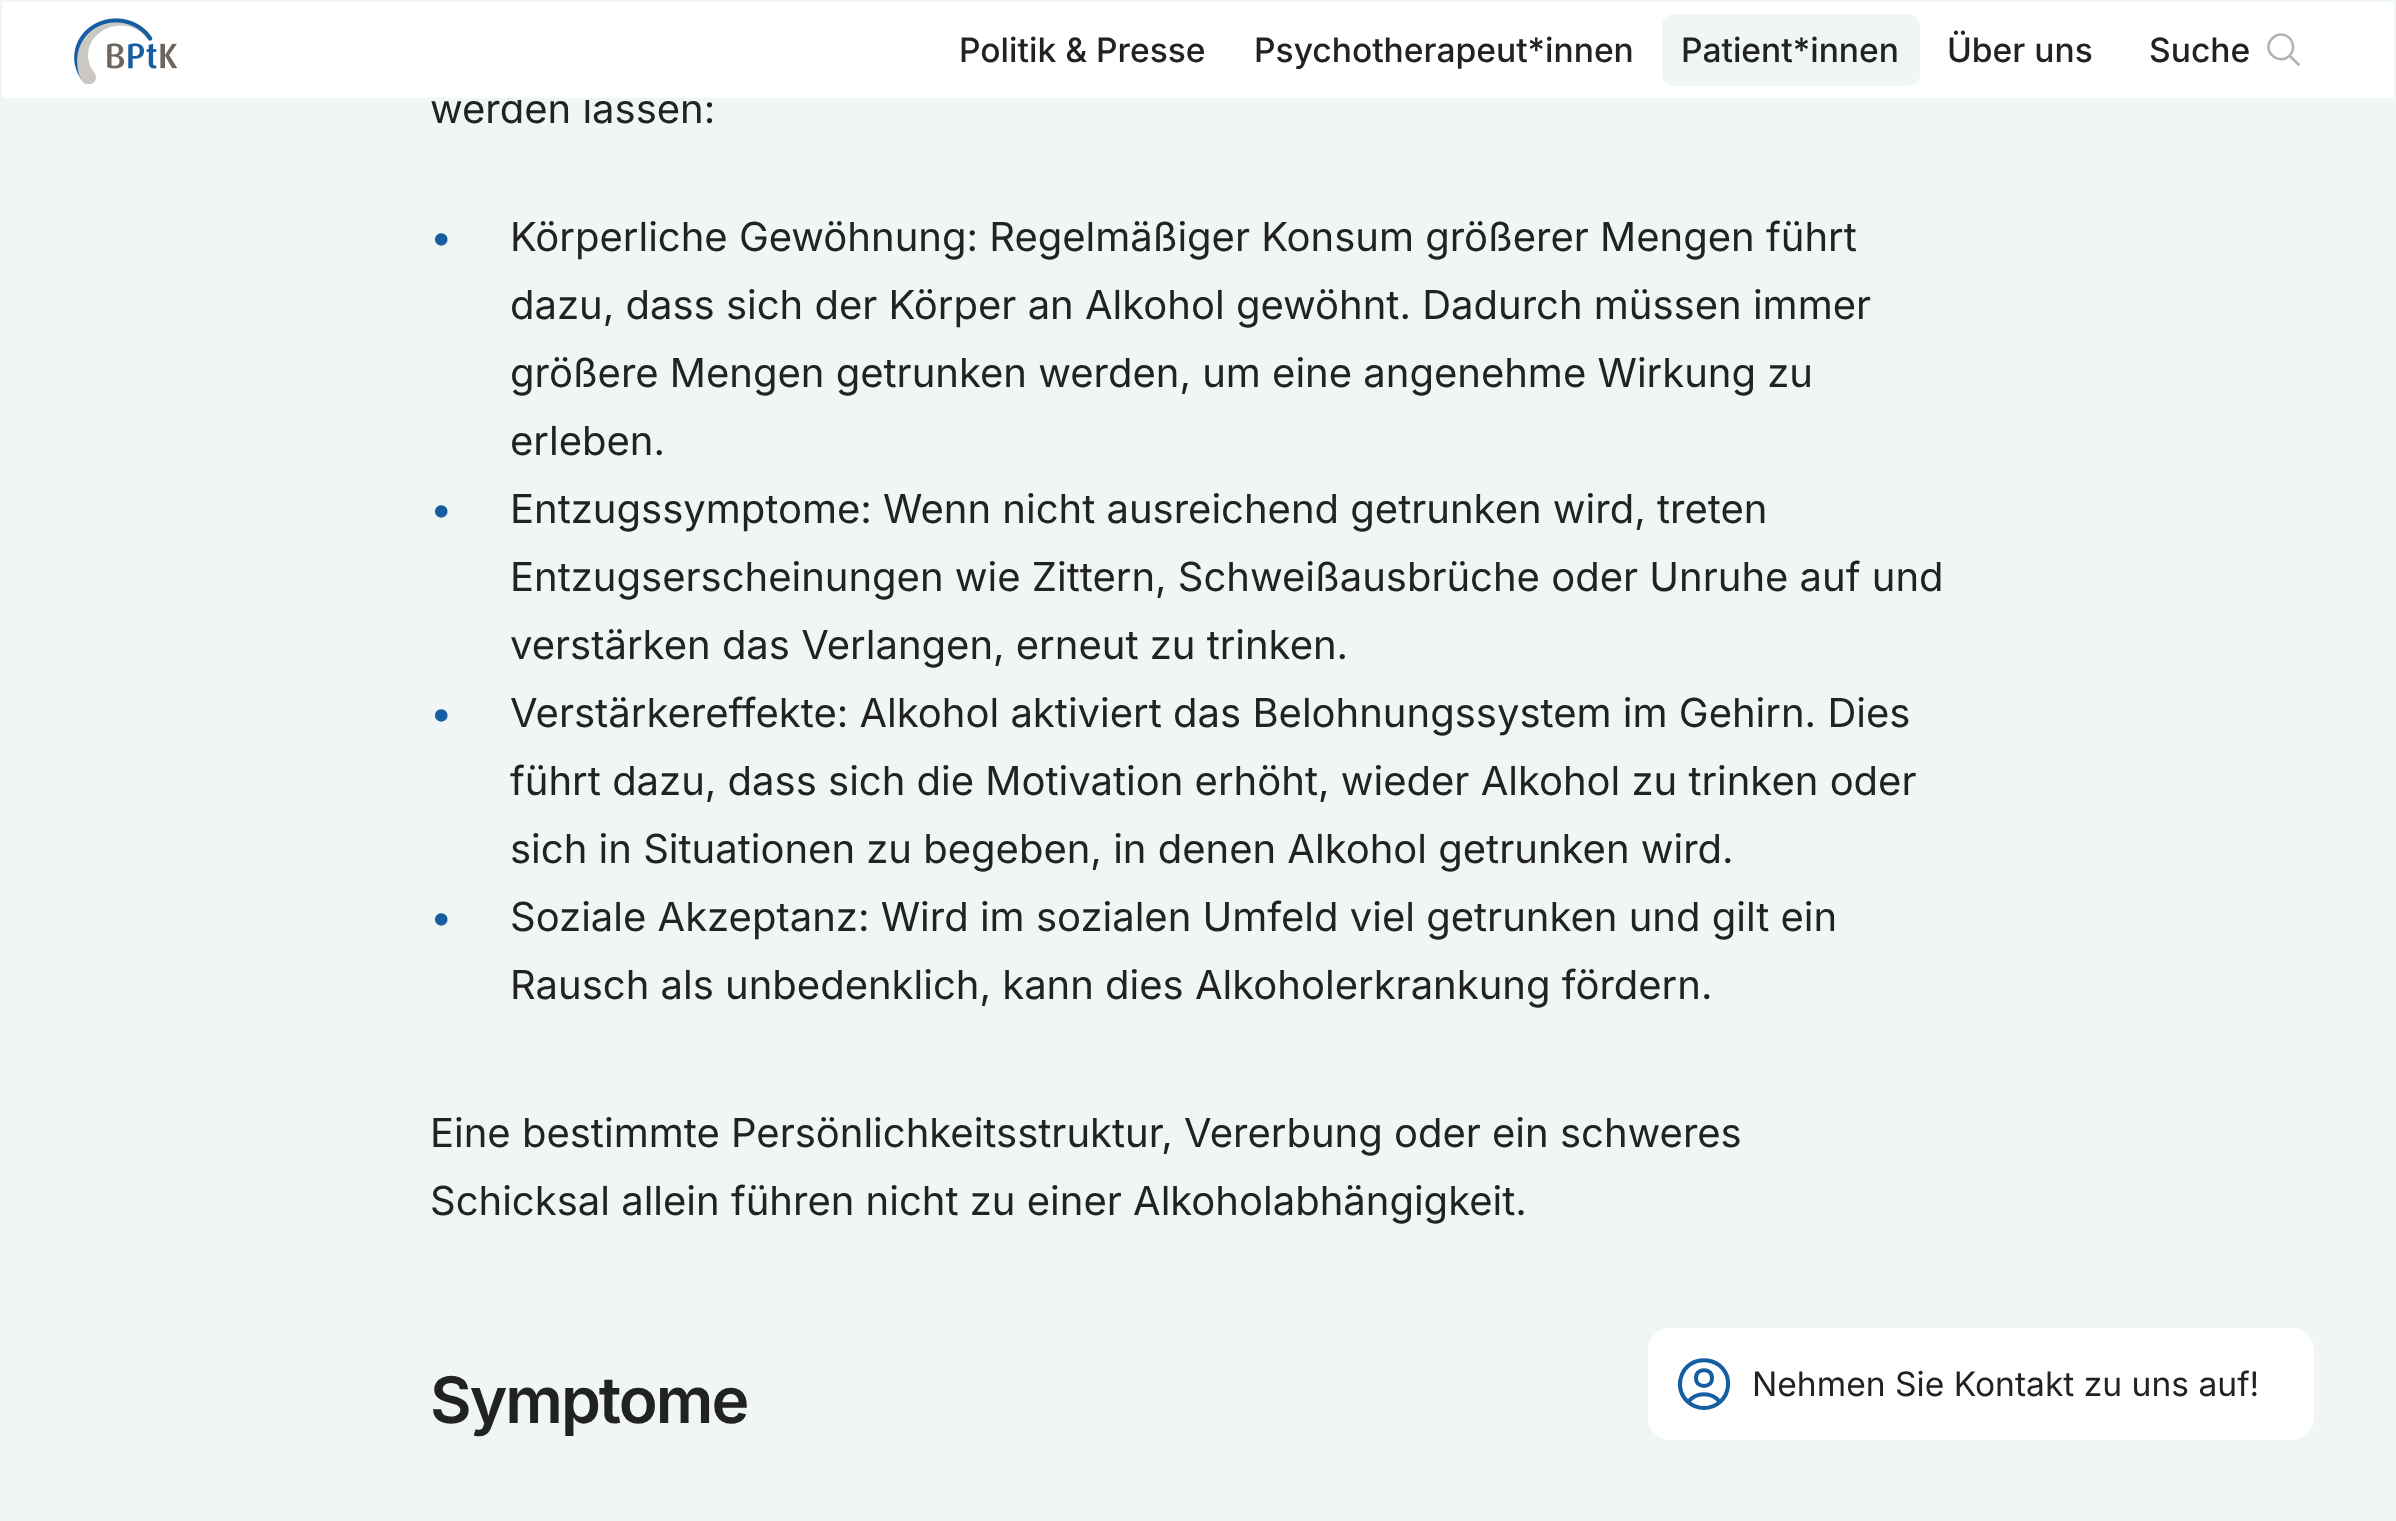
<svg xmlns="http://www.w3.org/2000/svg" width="2396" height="1521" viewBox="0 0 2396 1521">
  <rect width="100%" height="100%" fill="#f0f5f5"/>
  <text x="430" y="123" font-family="Inter" font-size="40" fill="#222222">werden lassen:</text>
  <rect x="1" y="1" width="2394" height="98" fill="#ffffff" stroke="#f0f5f5" stroke-width="2"/>
  <image x="74" y="18" width="104" height="66" href="img1.png"/>
  <text x="959" y="62" font-family="Inter" font-size="33.6" font-weight="500" fill="#222222">Politik &amp; Presse</text>
  <text x="1254" y="62" font-family="Inter" font-size="33.6" font-weight="500" fill="#222222">Psychotherapeut*innen</text>
  <rect x="1662" y="14" width="258" height="72" rx="12" fill="#f0f5f5"/>
  <text x="1681" y="62" font-family="Inter" font-size="33.6" font-weight="500" fill="#222222">Patient*innen</text>
  <text x="1947" y="62" font-family="Inter" font-size="33.6" font-weight="500" fill="#222222">Über uns</text>
  <text x="2149" y="62" font-family="Inter" font-size="33.6" font-weight="500" fill="#222222">Suche</text>
  <path d="M2298.5 64.5L2289.5 55.5M2289.5 55.5C2295 50.5 2294 41 2287.5 36.5C2284.5 34.5 2280 34 2276 35.5C2273 37 2271 39 2269.5 42C2264 54.5 2280.5 65 2289.5 55.5Z" fill="none" stroke="#b3b3b3" stroke-width="2.6" stroke-linecap="round" stroke-linejoin="round"/>
  <rect x="1647" y="1327" width="668" height="114" rx="23" fill="#ffffff" stroke="#f0f5f5" stroke-width="2"/>
  <path d="M1720 1402C1712 1391.5 1696 1391.5 1688 1402M1720 1402C1724.5 1398 1727.5 1392 1728 1386C1730.5 1356.5 1687 1350 1680.5 1379C1678.5 1387.5 1681.5 1396.5 1688 1402M1720 1402C1711 1410 1697 1410 1688 1402M1712 1378C1712 1388.5 1696 1388.5 1696 1378C1696 1367.5 1712 1367.5 1712 1378Z" fill="none" stroke="#155ea2" stroke-width="4" stroke-linecap="round" stroke-linejoin="round"/>
  <text x="1752" y="1396" font-family="Inter" font-size="33.6" fill="#222222">Nehmen Sie Kontakt zu uns auf!</text>
  <text x="430" y="251" font-family="Inter" font-size="40" fill="#155ea2">•</text>
  <text x="510" y="251" font-family="Inter" font-size="40" fill="#222222">Körperliche Gewöhnung: Regelmäßiger Konsum größerer Mengen führt</text>
  <text x="510" y="319" font-family="Inter" font-size="40" fill="#222222">dazu, dass sich der Körper an Alkohol gewöhnt. Dadurch müssen immer</text>
  <text x="510" y="387" font-family="Inter" font-size="40" fill="#222222">größere Mengen getrunken werden, um eine angenehme Wirkung zu</text>
  <text x="510" y="455" font-family="Inter" font-size="40" fill="#222222">erleben.</text>
  <text x="430" y="523" font-family="Inter" font-size="40" fill="#155ea2">•</text>
  <text x="510" y="523" font-family="Inter" font-size="40" fill="#222222">Entzugssymptome: Wenn nicht ausreichend getrunken wird, treten</text>
  <text x="510" y="591" font-family="Inter" font-size="40" fill="#222222">Entzugserscheinungen wie Zittern, Schweißausbrüche oder Unruhe auf und</text>
  <text x="510" y="659" font-family="Inter" font-size="40" fill="#222222">verstärken das Verlangen, erneut zu trinken.</text>
  <text x="430" y="727" font-family="Inter" font-size="40" fill="#155ea2">•</text>
  <text x="510" y="727" font-family="Inter" font-size="40" fill="#222222">Verstärkereffekte: Alkohol aktiviert das Belohnungssystem im Gehirn. Dies</text>
  <text x="510" y="795" font-family="Inter" font-size="40" fill="#222222">führt dazu, dass sich die Motivation erhöht, wieder Alkohol zu trinken oder</text>
  <text x="510" y="863" font-family="Inter" font-size="40" fill="#222222">sich in Situationen zu begeben, in denen Alkohol getrunken wird.</text>
  <text x="430" y="931" font-family="Inter" font-size="40" fill="#155ea2">•</text>
  <text x="510" y="931" font-family="Inter" font-size="40" fill="#222222">Soziale Akzeptanz: Wird im sozialen Umfeld viel getrunken und gilt ein</text>
  <text x="510" y="999" font-family="Inter" font-size="40" fill="#222222">Rausch als unbedenklich, kann dies Alkoholerkrankung fördern.</text>
  <text x="430" y="1147" font-family="Inter" font-size="40" fill="#222222">Eine bestimmte Persönlichkeitsstruktur, Vererbung oder ein schweres</text>
  <text x="430" y="1215" font-family="Inter" font-size="40" fill="#222222">Schicksal allein führen nicht zu einer Alkoholabhängigkeit.</text>
  <text x="430" y="1423" font-family="Inter" font-size="64" font-weight="600" letter-spacing="-2" fill="#222222">Symptome</text>
</svg>
